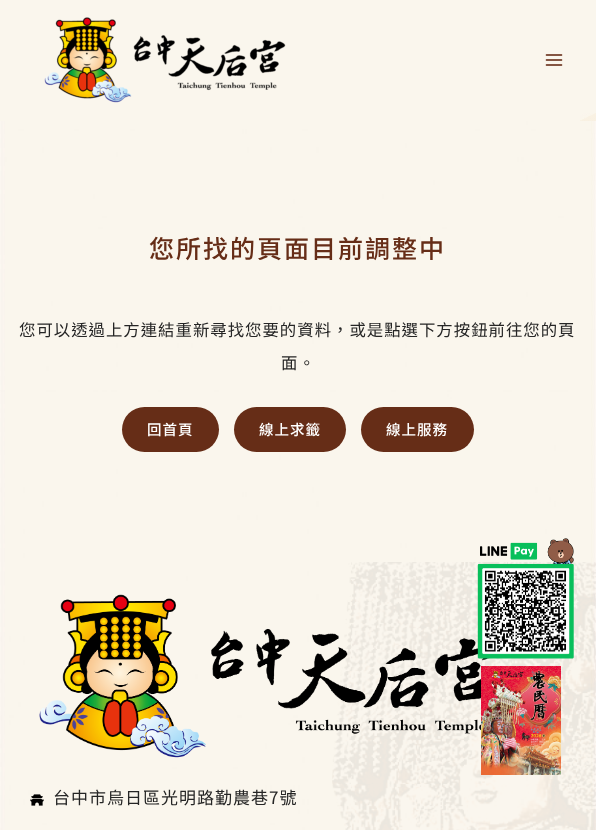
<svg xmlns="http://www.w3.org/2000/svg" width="596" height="830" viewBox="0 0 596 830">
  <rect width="100%" height="100%" fill="#ffffff"/>
  <image x="0" y="121" width="596" height="709" href="img1.png"/>
  <rect x="0" y="0" width="596" height="121" fill="#faf6ed"/>
  <image x="580" y="113" width="16" height="8" href="img2.png"/>
  <image x="44" y="17" width="242" height="86" href="img3.png"/>
  <image x="545" y="54" width="18" height="12" href="img4.png"/>
  <text x="149" y="258" font-family="Noto Sans TC" font-size="25" font-weight="500" letter-spacing="2" fill="#662d17">您所找的頁面目前調整中</text>
  <text x="19" y="336" font-family="Noto Sans TC" font-size="16.4" letter-spacing="1" fill="#252525">您可以透過上方連結重新尋找您要的資料，或是點選下方按鈕前往您的頁</text>
  <text x="281" y="369" font-family="Noto Sans TC" font-size="16.4" letter-spacing="1" fill="#252525">面。</text>
  <rect x="122" y="407" width="97" height="45" rx="22.5" fill="#662d17"/>
  <text x="147" y="435" font-family="Noto Sans TC" font-size="14.5" font-weight="500" letter-spacing="1" fill="#ffffff">回首頁</text>
  <rect x="234" y="407" width="112" height="45" rx="22.5" fill="#662d17"/>
  <text x="259" y="435" font-family="Noto Sans TC" font-size="14.5" font-weight="500" letter-spacing="1" fill="#ffffff">線上求籤</text>
  <rect x="361" y="407" width="113" height="45" rx="22.5" fill="#662d17"/>
  <text x="386" y="435" font-family="Noto Sans TC" font-size="14.5" font-weight="500" letter-spacing="1" fill="#ffffff">線上服務</text>
  <image x="332" y="562" width="264" height="268" href="img9.png"/>
  <image x="39" y="594" width="452" height="164" href="img5.png"/>
  <image x="477" y="538" width="97" height="121" href="img6.png"/>
  <image x="481" y="666" width="80" height="109" href="img7.png"/>
  <image x="30" y="794" width="14" height="12" href="img8.png"/>
  <text x="53" y="804" font-family="Noto Sans TC" font-size="17" letter-spacing="1" fill="#252525">台中市烏日區光明路勤農巷7號</text>
</svg>
